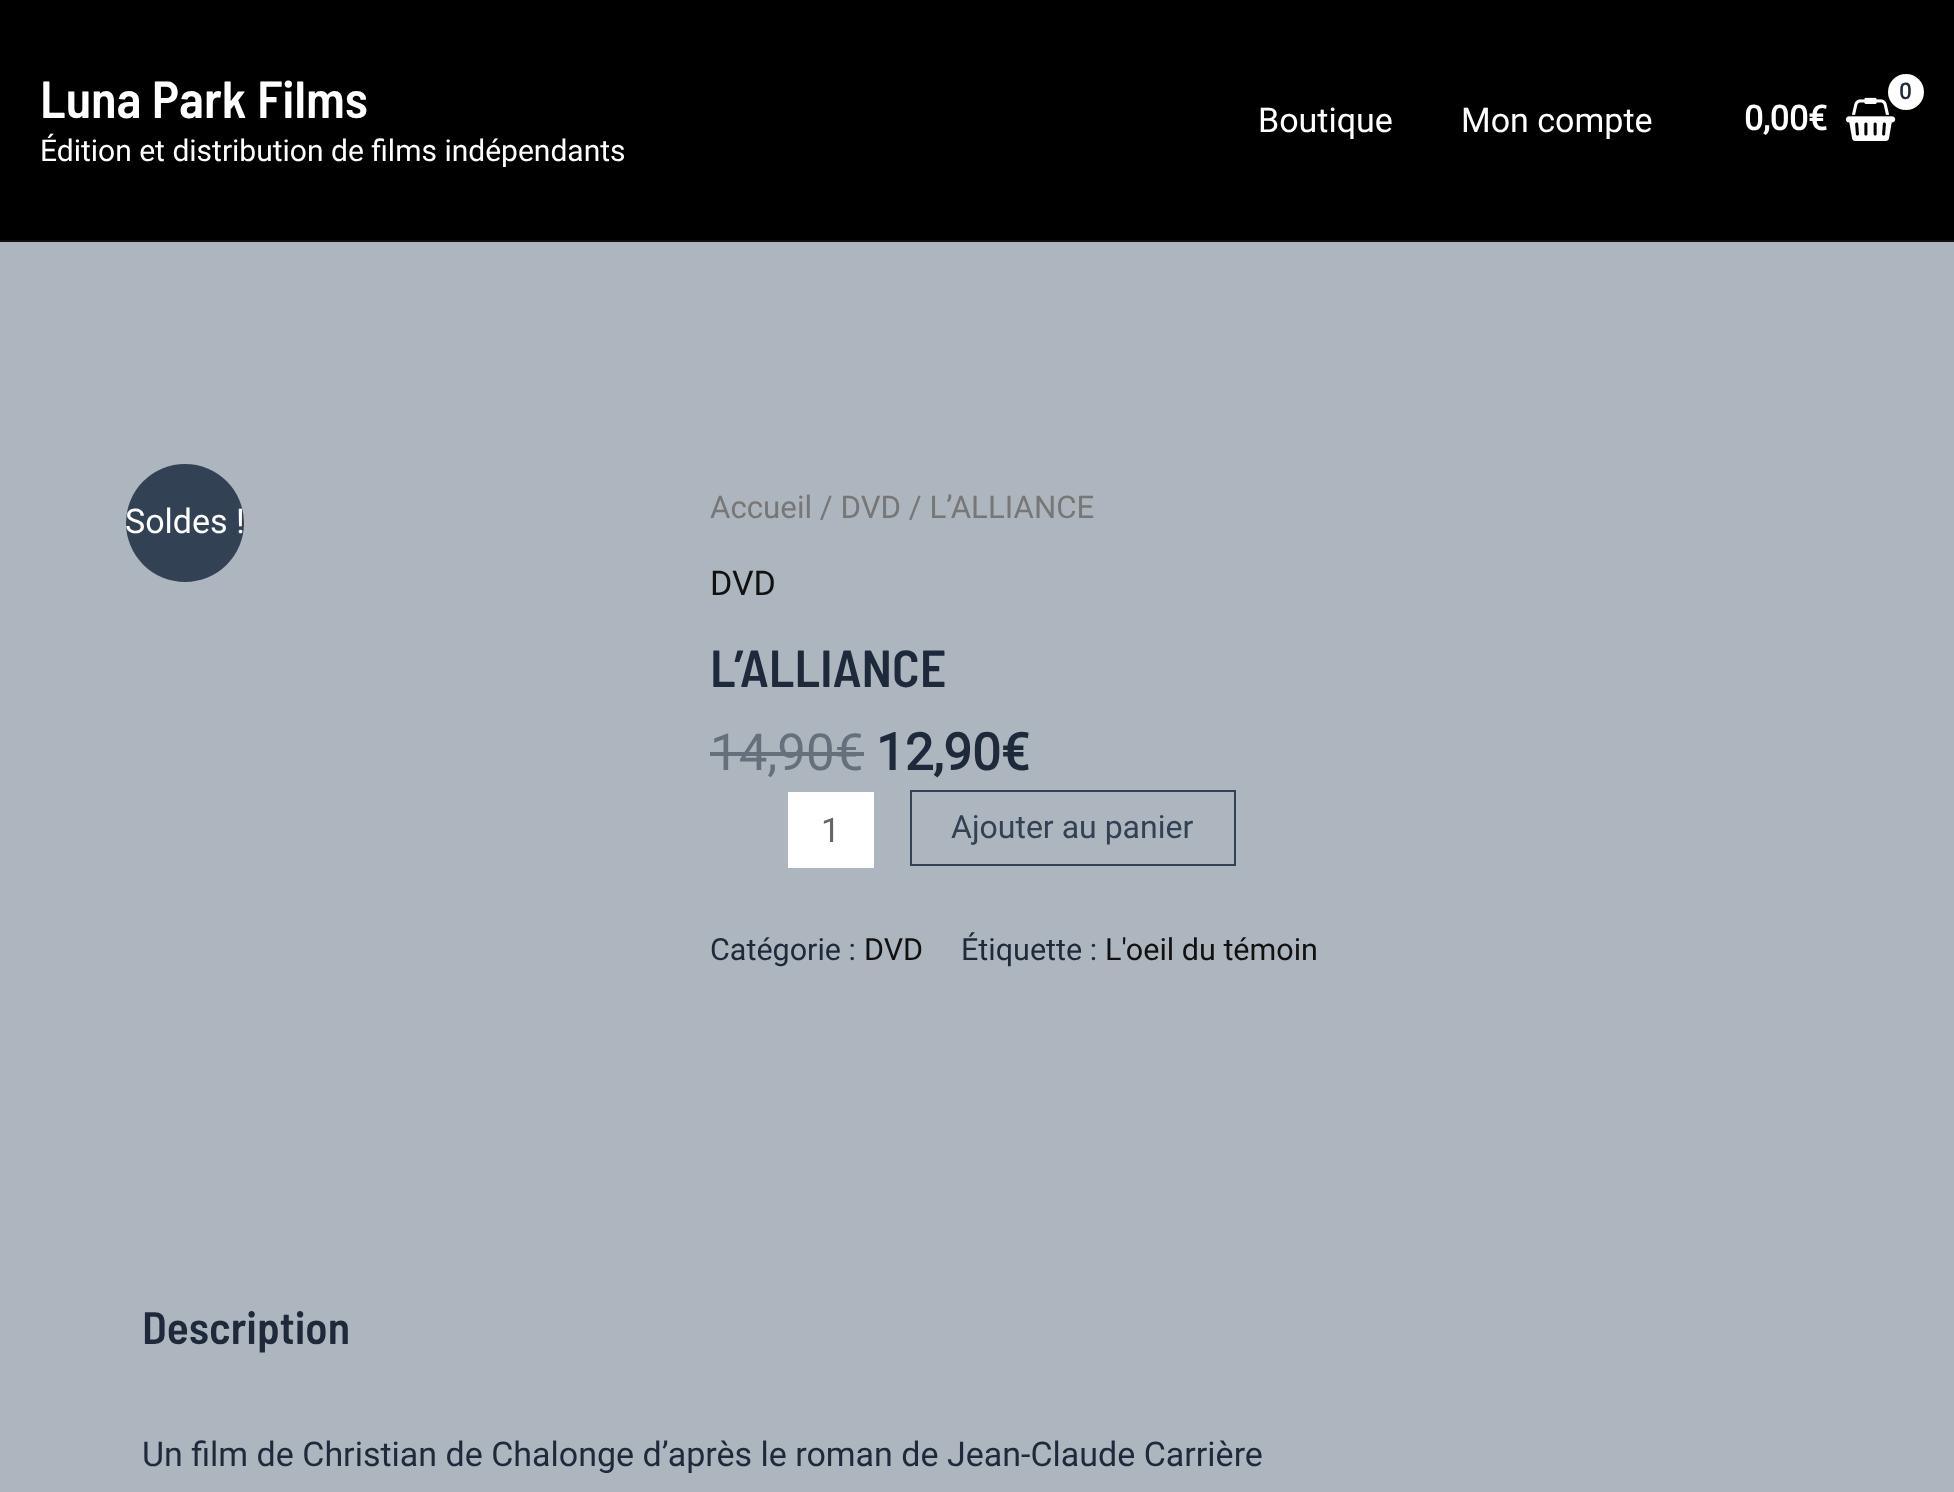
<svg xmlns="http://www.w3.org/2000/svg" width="1954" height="1492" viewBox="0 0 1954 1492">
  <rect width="100%" height="100%" fill="#adb6be"/>
  <rect x="0" y="0" width="1954" height="240" fill="#000000"/>
  <rect x="0" y="240" width="1954" height="2" fill="#111111"/>
  <text x="40" y="118" font-family="Barlow Semi Condensed" font-size="52" font-weight="600" fill="#ffffff">Luna Park Films</text>
  <text x="40" y="161" font-family="Roboto" font-size="30" fill="#ffffff">Édition et distribution de films indépendants</text>
  <text x="1258" y="132" font-family="Roboto" font-size="34" fill="#ffffff">Boutique</text>
  <text x="1461" y="132" font-family="Roboto" font-size="34" fill="#ffffff">Mon compte</text>
  <image x="1845" y="97" width="51" height="44" href="img1.png"/>
  <circle cx="1906" cy="92" r="18" fill="#ffffff"/>
  <text x="1899" y="99" font-family="Roboto" font-size="22" font-weight="bold" letter-spacing="-1" fill="#1e293b">0</text>
  <text x="1744" y="130" font-family="Roboto" font-size="34" font-weight="bold" fill="#ffffff">0,00€</text>
  <circle cx="185" cy="523" r="59" fill="#334155"/>
  <text x="125" y="533" font-family="Roboto" font-size="34" fill="#ffffff">Soldes !</text>
  <text x="710" y="518" font-family="Roboto" font-size="31.25" fill="#777777">Accueil / DVD / L’ALLIANCE</text>
  <text x="710" y="595" font-family="Roboto" font-size="34" fill="#111111">DVD</text>
  <text x="710" y="687" font-family="Barlow Semi Condensed" font-size="52" font-weight="600" fill="#1e293b">L’ALLIANCE</text>
  <text x="710" y="770" font-family="Roboto" font-size="51" fill="#66707d">14,90€</text>
  <rect x="710" y="752" width="154" height="4" fill="#66707d"/>
  <text x="876" y="770" font-family="Roboto" font-size="51" font-weight="bold" fill="#1e293b">12,90€</text>
  <rect x="788" y="792" width="86" height="76" fill="#ffffff"/>
  <text x="821" y="842" font-family="Roboto" font-size="34" fill="#666666">1</text>
  <rect x="911" y="791" width="324" height="74" fill="none" stroke="#334155" stroke-width="2"/>
  <text x="951" y="838" font-family="Roboto" font-size="32" fill="#334155">Ajouter au panier</text>
  <text x="710" y="960" font-family="Roboto" font-size="30.5" fill="#1e293b">Catégorie :</text>
  <text x="864" y="960" font-family="Roboto" font-size="30.5" fill="#111111">DVD</text>
  <text x="961" y="960" font-family="Roboto" font-size="30.5" fill="#1e293b">Étiquette :</text>
  <text x="1105" y="960" font-family="Roboto" font-size="30.5" fill="#111111">L'oeil du témoin</text>
  <text x="142" y="1344" font-family="Barlow Semi Condensed" font-size="45.5" font-weight="600" fill="#1e293b">Description</text>
  <text x="142" y="1466" font-family="Roboto" font-size="34" fill="#1e293b">Un film de Christian de Chalonge d’après le roman de Jean-Claude Carrière</text>
</svg>
